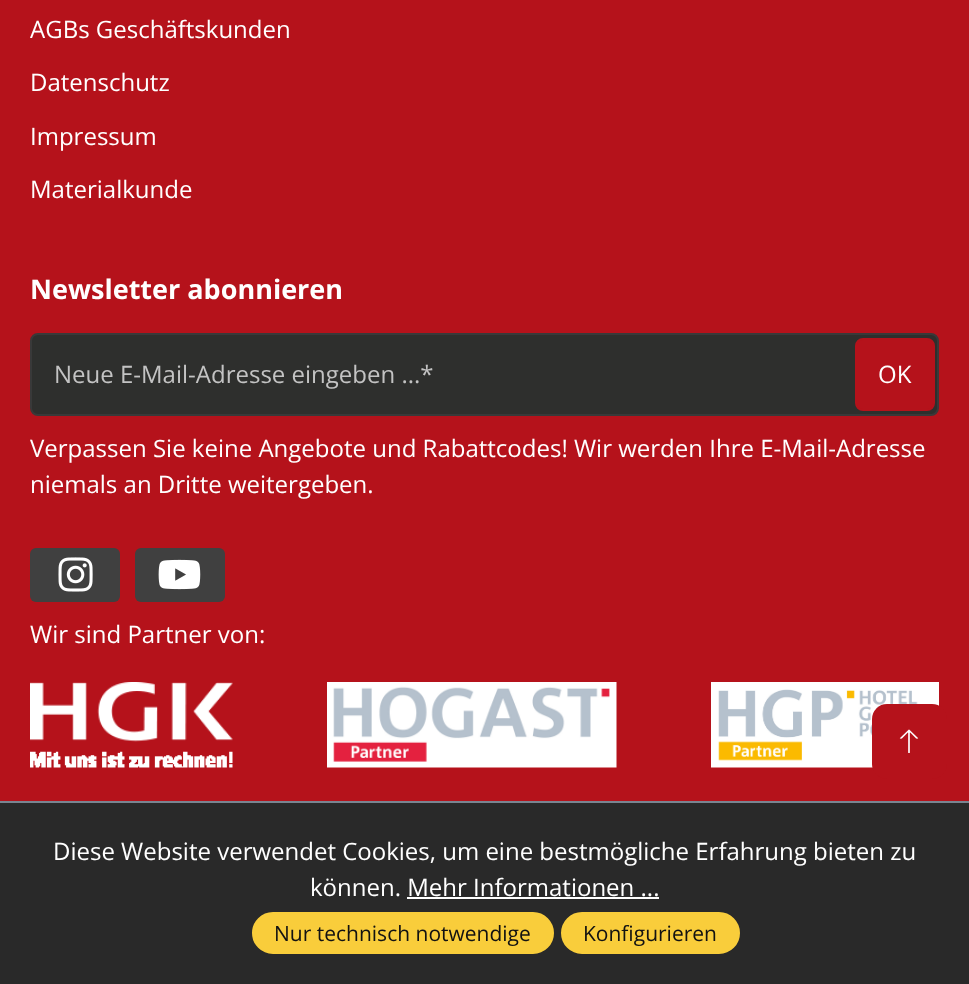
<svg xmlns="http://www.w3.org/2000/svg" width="969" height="984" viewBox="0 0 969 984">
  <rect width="100%" height="100%" fill="#b5121b"/>
  <text x="30" y="38" font-family="Open Sans" font-size="24" fill="#ffffff">AGBs Geschäftskunden</text>
  <text x="30" y="91" font-family="Open Sans" font-size="24" fill="#ffffff">Datenschutz</text>
  <text x="30" y="145" font-family="Open Sans" font-size="24" fill="#ffffff">Impressum</text>
  <text x="30" y="198" font-family="Open Sans" font-size="24" fill="#ffffff">Materialkunde</text>
  <text x="30" y="299" font-family="Open Sans" font-size="27" font-weight="bold" fill="#ffffff">Newsletter abonnieren</text>
  <rect x="31" y="334" width="907" height="81" rx="7" fill="#2e2f2d" stroke="#393939" stroke-width="2"/>
  <text x="54" y="383" font-family="Open Sans" font-size="24" fill="#c3c3c3">Neue E-Mail-Adresse eingeben ...*</text>
  <rect x="856" y="339" width="78" height="71" rx="7" fill="#b5121b" stroke="#b5121b" stroke-width="2"/>
  <text x="878" y="383" font-family="Open Sans" font-size="24" fill="#ffffff">OK</text>
  <text x="30" y="457" font-family="Open Sans" font-size="24" fill="#ffffff">Verpassen Sie keine Angebote und Rabattcodes! Wir werden Ihre E-Mail-Adresse</text>
  <text x="30" y="493" font-family="Open Sans" font-size="24" fill="#ffffff">niemals an Dritte weitergeben.</text>
  <rect x="30" y="548" width="90" height="54" rx="6" fill="#404040"/>
  <image x="58" y="557" width="35" height="35" href="img1.png"/>
  <rect x="135" y="548" width="90" height="54" rx="6" fill="#404040"/>
  <image x="158" y="559" width="43" height="31" href="img2.png"/>
  <text x="30" y="643" font-family="Open Sans" font-size="24" fill="#ffffff">Wir sind Partner von:</text>
  <image x="30" y="682" width="203" height="86" href="img3.png"/>
  <image x="327" y="682" width="290" height="86" href="img4.png"/>
  <image x="711" y="682" width="228" height="86" href="img5.png"/>
  <rect x="872" y="704" width="75" height="75" rx="15" fill="#b5121b"/>
  <image x="899" y="729" width="20" height="24" href="img6.png"/>
  <rect x="0" y="803" width="969" height="181" fill="#292929"/>
  <rect x="0" y="801" width="969" height="2" fill="#798490"/>
  <text x="53" y="860" font-family="Open Sans" font-size="24" fill="#ffffff">Diese Website verwendet Cookies, um eine bestmögliche Erfahrung bieten zu</text>
  <text x="310" y="896" font-family="Open Sans" font-size="24" fill="#ffffff">können. Mehr Informationen ...</text>
  <rect x="407" y="897" width="252" height="2" fill="#ffffff"/>
  <rect x="253" y="913" width="300" height="40" rx="20" fill="#f9cd3b" stroke="#f9cd3b" stroke-width="2"/>
  <text x="274" y="941" font-family="Open Sans" font-size="21" fill="#121212">Nur technisch notwendige</text>
  <rect x="562" y="913" width="177" height="40" rx="20" fill="#f9cd3b" stroke="#f9cd3b" stroke-width="2"/>
  <text x="583" y="941" font-family="Open Sans" font-size="21" fill="#121212">Konfigurieren</text>
</svg>
